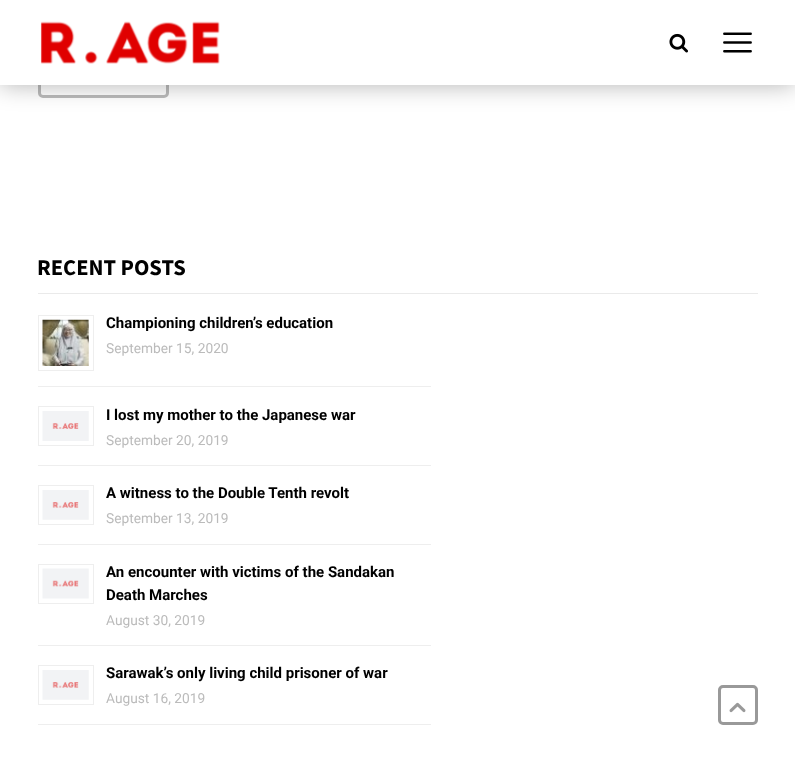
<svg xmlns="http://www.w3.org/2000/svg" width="795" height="762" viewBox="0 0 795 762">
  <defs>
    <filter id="blur1" x="-50%" y="-200%" width="200%" height="500%"><feGaussianBlur stdDeviation="12.5"/></filter>
  </defs>
  <rect width="100%" height="100%" fill="#ffffff"/>
  <rect x="39.5" y="46.5" width="128" height="50" rx="3.5" fill="none" stroke="#bbbbbb" stroke-width="3"/>
  <rect x="0" y="0" width="795" height="85" fill="#000000" fill-opacity="0.3" filter="url(#blur1)"/>
  <rect x="0" y="0" width="795" height="85" fill="#ffffff"/>
  <image x="40" y="21" width="180" height="43" href="img1.png"/>
  <image x="669" y="33" width="19" height="20" href="img2.png"/>
  <image x="723" y="32" width="29" height="21" href="img3.png"/>
  <rect x="38" y="293" width="720" height="1" fill="#eaeaea"/>
  <text x="37" y="275" font-family="Source Sans Pro" font-size="22.5" font-weight="bold" fill="#000000">RECENT POSTS</text>
  <rect x="38" y="386" width="393" height="1" fill="#eeeeee"/>
  <rect x="38.5" y="315.5" width="55" height="55" fill="none" stroke="#eeeeee"/>
  <image x="42" y="319" width="47" height="47" href="img4.png"/>
  <text x="106" y="328" font-family="Roboto" font-size="15" font-weight="bold" fill="#000000">Championing children’s education</text>
  <text x="106" y="353" font-family="Roboto" font-size="13.75" fill="#bbbbbb">September 15, 2020</text>
  <rect x="38" y="465" width="393" height="1" fill="#eeeeee"/>
  <rect x="38.5" y="406.5" width="55" height="39" fill="none" stroke="#eeeeee"/>
  <image x="42" y="411" width="47" height="30" href="img5.png"/>
  <text x="106" y="420" font-family="Roboto" font-size="15" font-weight="bold" fill="#000000">I lost my mother to the Japanese war</text>
  <text x="106" y="445" font-family="Roboto" font-size="13.75" fill="#bbbbbb">September 20, 2019</text>
  <rect x="38" y="544" width="393" height="1" fill="#eeeeee"/>
  <rect x="38.5" y="485.5" width="55" height="39" fill="none" stroke="#eeeeee"/>
  <image x="42" y="490" width="47" height="30" href="img6.png"/>
  <text x="106" y="498" font-family="Roboto" font-size="15" font-weight="bold" fill="#000000">A witness to the Double Tenth revolt</text>
  <text x="106" y="523" font-family="Roboto" font-size="13.75" fill="#bbbbbb">September 13, 2019</text>
  <rect x="38" y="645" width="393" height="1" fill="#eeeeee"/>
  <rect x="38.5" y="564.5" width="55" height="39" fill="none" stroke="#eeeeee"/>
  <image x="42" y="568" width="47" height="31" href="img7.png"/>
  <text x="106" y="577" font-family="Roboto" font-size="15" font-weight="bold" fill="#000000">An encounter with victims of the Sandakan</text>
  <text x="106" y="600" font-family="Roboto" font-size="15" font-weight="bold" fill="#000000">Death Marches</text>
  <text x="106" y="625" font-family="Roboto" font-size="13.75" fill="#bbbbbb">August 30, 2019</text>
  <rect x="38" y="724" width="393" height="1" fill="#eeeeee"/>
  <rect x="38.5" y="665.5" width="55" height="39" fill="none" stroke="#eeeeee"/>
  <image x="42" y="670" width="47" height="30" href="img6.png"/>
  <text x="106" y="678" font-family="Roboto" font-size="15" font-weight="bold" fill="#000000">Sarawak’s only living child prisoner of war</text>
  <text x="106" y="703" font-family="Roboto" font-size="13.75" fill="#bbbbbb">August 16, 2019</text>
  <rect x="719.5" y="686.5" width="37" height="37" rx="3.5" fill="none" stroke="#999999" stroke-width="3"/>
  <image x="729" y="702" width="17" height="11" href="img8.png"/>
</svg>
